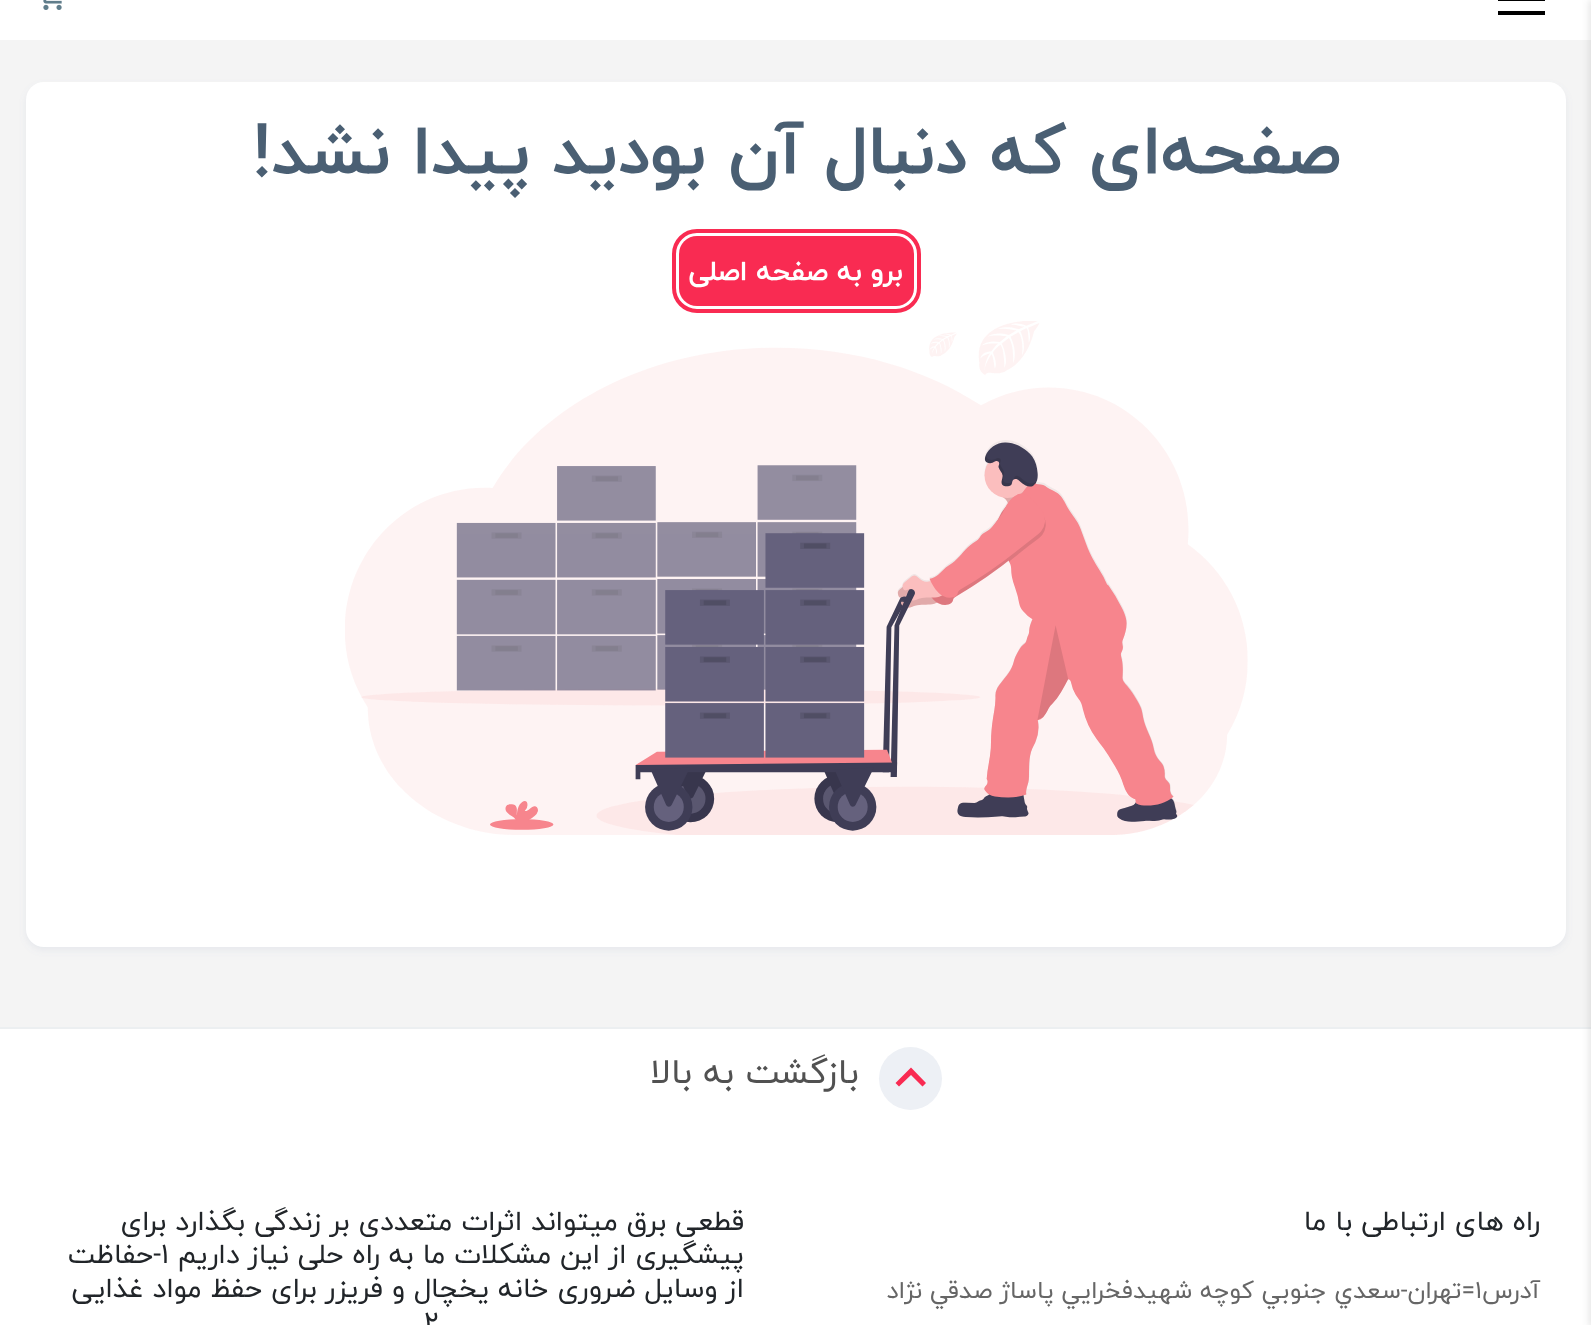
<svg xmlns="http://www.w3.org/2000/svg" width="1591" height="1325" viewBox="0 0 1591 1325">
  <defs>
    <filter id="blur1" x="-50%" y="-200%" width="200%" height="500%"><feGaussianBlur stdDeviation="3.5"/></filter>
  </defs>
  <rect width="100%" height="100%" fill="#f4f4f4"/>
  <rect x="0" y="0" width="1591" height="40" fill="#ffffff"/>
  <rect x="0" y="1029" width="1591" height="296" fill="#ffffff"/>
  <rect x="0" y="1027" width="1591" height="2" fill="#eceff1"/>
  <rect x="1589" y="0" width="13" height="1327" fill="#000000" fill-opacity="0.1" filter="url(#blur1)"/>
  <rect x="1498" y="0" width="47" height="1" fill="#000000"/>
  <rect x="1498" y="11" width="47" height="4" fill="#000000"/>
  <image x="43" y="0" width="19" height="10" href="img1.png"/>
  <rect x="26" y="86" width="1540" height="864" rx="18" fill="#7e8eb1" fill-opacity="0.12" filter="url(#blur1)"/>
  <rect x="26" y="82" width="1540" height="865" rx="18" fill="#ffffff"/>
  <text x="1341" y="173" font-family="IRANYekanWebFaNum" font-size="70" font-weight="bold" direction="rtl" fill="#4a5f73">صفحه‌ای که دنبال آن بودید پیدا نشد!</text>
  <rect x="679" y="236" width="235" height="70" rx="18" fill="#f92b52"/>
  <text x="903" y="280" font-family="IRANYekanWebFaNum" font-size="28" font-weight="bold" direction="rtl" fill="#ffffff">برو به صفحه اصلی</text>
  <rect x="674" y="231" width="245" height="80" rx="23" fill="none" stroke="#f92b52" stroke-width="4"/>
  <image x="345" y="321" width="903" height="514" href="img2.png"/>
  <circle cx="910.5" cy="1078.5" r="31.5" fill="#edf0f5"/>
  <path d="M899 1086.5L911 1075L922.5 1086.5L926 1083L911 1067.5L895.5 1083Z" fill="#f92b52"/>
  <text x="859" y="1083" font-family="IRANYekanWebFaNum" font-size="35" direction="rtl" fill="#515151">بازگشت به بالا</text>
  <text x="1540" y="1230" font-family="IRANYekanWebFaNum" font-size="28" direction="rtl" fill="#212529">راه های ارتباطی با ما</text>
  <text x="1540" y="1298" font-family="IRANYekanWebFaNum" font-size="24.5" direction="rtl" fill="#666666">آدرس</text>
  <text x="1475" y="1298" font-family="IRANYekanWebFaNum" font-size="24.5" fill="#666666">١</text>
  <text x="1475" y="1298" font-family="IRANYekanWebFaNum" font-size="24.5" direction="rtl" fill="#666666">=تهران-سعدي جنوبي كوچه شهيدفخرايي پاساژ صدقي نژاد</text>
  <text x="744" y="1230" font-family="IRANYekanWebFaNum" font-size="28" direction="rtl" fill="#212529">قطعی برق میتواند اثرات متعددی بر زندگی بگذارد برای</text>
  <text x="744" y="1263" font-family="IRANYekanWebFaNum" font-size="28" direction="rtl" fill="#212529">پیشگیری از این مشکلات ما به راه حلی نیاز داریم</text>
  <text x="161" y="1263" font-family="IRANYekanWebFaNum" font-size="28" fill="#212529">۱</text>
  <text x="161" y="1263" font-family="IRANYekanWebFaNum" font-size="28" direction="rtl" fill="#212529">-حفاظت</text>
  <text x="744" y="1297" font-family="IRANYekanWebFaNum" font-size="28" direction="rtl" fill="#212529">از وسایل ضروری خانه یخچال و فریزر برای حفظ مواد غذایی</text>
  <text x="424" y="1331" font-family="IRANYekanWebFaNum" font-size="28" fill="#212529">۲</text>
</svg>
